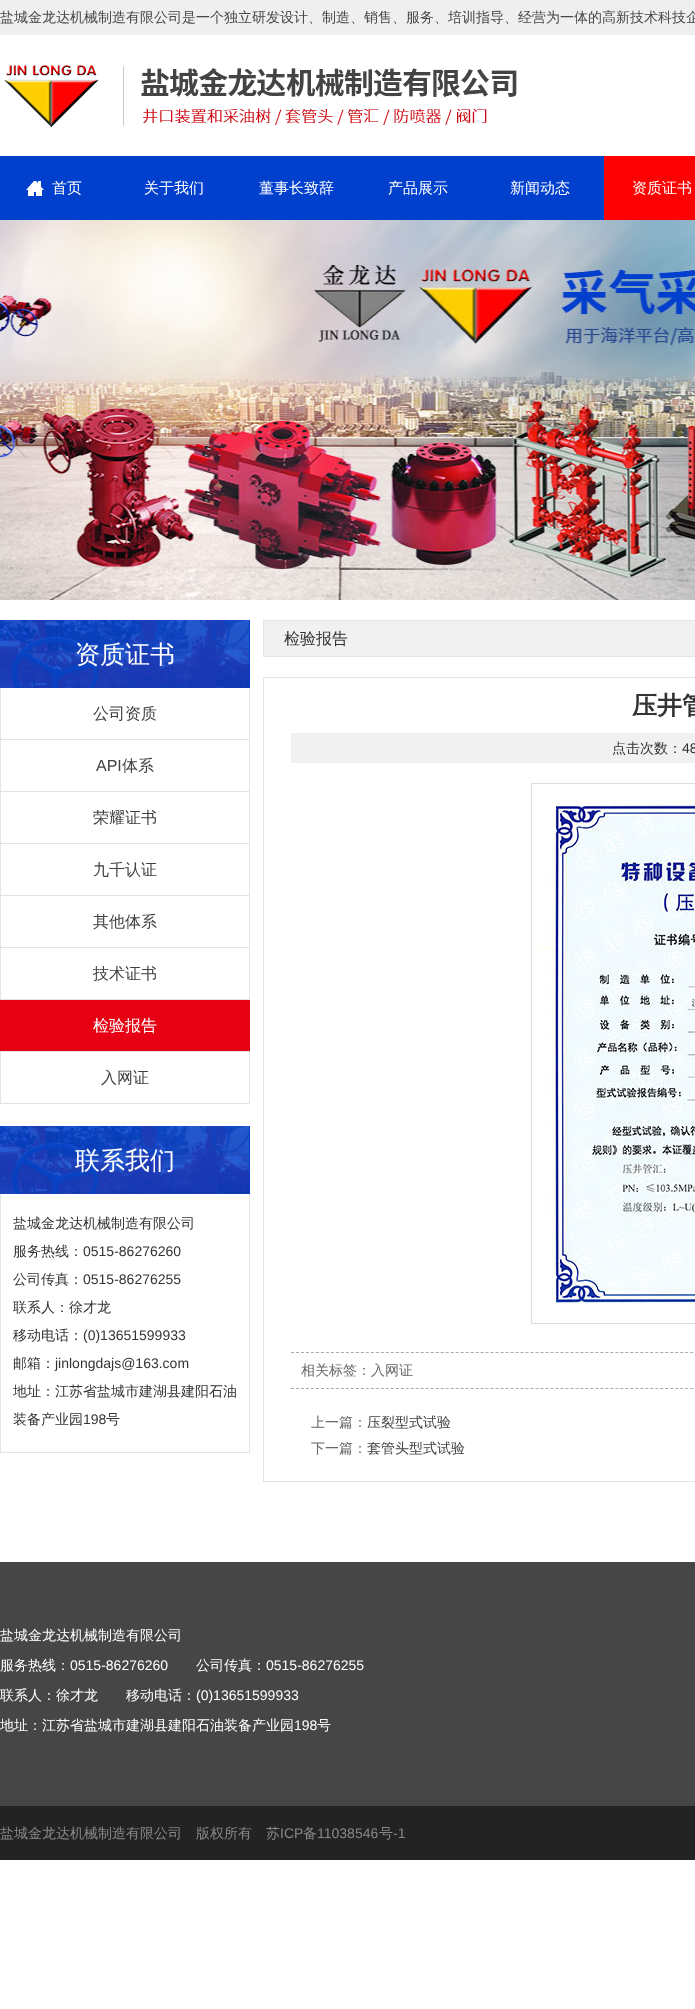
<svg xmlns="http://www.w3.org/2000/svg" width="695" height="2009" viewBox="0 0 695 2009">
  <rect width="100%" height="100%" fill="#ffffff"/>
  <rect x="0" y="0" width="695" height="35" fill="#efefef"/>
  <text x="0" y="22" font-family="WenQuanYi Zen Hei" font-size="14" font-weight="500" fill="#474747">盐城金龙达机械制造有限公司是一个独立研发设计、制造、销售、服务、培训指导、经营为一体的高新技术科技企</text>
  <image x="4" y="64" width="513" height="64" href="img1.png"/>
  <rect x="0" y="156" width="604" height="64" fill="#013fcd"/>
  <image x="26" y="181" width="18" height="15" href="img2.png"/>
  <text x="52" y="193" font-family="WenQuanYi Zen Hei" font-size="15" font-weight="500" fill="#ffffff">首页</text>
  <text x="144" y="193" font-family="WenQuanYi Zen Hei" font-size="15" font-weight="500" fill="#ffffff">关于我们</text>
  <text x="259" y="193" font-family="WenQuanYi Zen Hei" font-size="15" font-weight="500" fill="#ffffff">董事长致辞</text>
  <text x="388" y="193" font-family="WenQuanYi Zen Hei" font-size="15" font-weight="500" fill="#ffffff">产品展示</text>
  <text x="510" y="193" font-family="WenQuanYi Zen Hei" font-size="15" font-weight="500" fill="#ffffff">新闻动态</text>
  <rect x="604" y="156" width="91" height="64" fill="#fe0102"/>
  <text x="632" y="193" font-family="WenQuanYi Zen Hei" font-size="15" font-weight="500" fill="#ffffff">资质证书</text>
  <image x="0" y="220" width="695" height="380" href="img3.png"/>
  <rect x="249" y="620" width="1" height="68" fill="#013fcd"/>
  <image x="0" y="620" width="249" height="68" href="img4.png"/>
  <text x="75" y="663" font-family="WenQuanYi Zen Hei" font-size="25" font-weight="500" fill="#ffffff">资质证书</text>
  <image x="0" y="688" width="250" height="415" href="img5.png"/>
  <rect x="0" y="739" width="250" height="1" fill="#e2e2e2"/>
  <text x="93" y="719" font-family="WenQuanYi Zen Hei" font-size="16" font-weight="500" fill="#404145">公司资质</text>
  <rect x="0" y="791" width="250" height="1" fill="#e2e2e2"/>
  <text x="96" y="771" font-family="Liberation Sans" font-size="16" fill="#404145">API</text>
  <text x="122" y="771" font-family="WenQuanYi Zen Hei" font-size="16" font-weight="500" fill="#404145">体系</text>
  <rect x="0" y="843" width="250" height="1" fill="#e2e2e2"/>
  <text x="93" y="823" font-family="WenQuanYi Zen Hei" font-size="16" font-weight="500" fill="#404145">荣耀证书</text>
  <rect x="0" y="895" width="250" height="1" fill="#e2e2e2"/>
  <text x="93" y="875" font-family="WenQuanYi Zen Hei" font-size="16" font-weight="500" fill="#404145">九千认证</text>
  <rect x="0" y="947" width="250" height="1" fill="#e2e2e2"/>
  <text x="93" y="927" font-family="WenQuanYi Zen Hei" font-size="16" font-weight="500" fill="#404145">其他体系</text>
  <rect x="0" y="999" width="250" height="1" fill="#e2e2e2"/>
  <text x="93" y="979" font-family="WenQuanYi Zen Hei" font-size="16" font-weight="500" fill="#404145">技术证书</text>
  <rect x="0" y="1000" width="250" height="51" fill="#e70014"/>
  <rect x="0" y="1051" width="250" height="1" fill="#e2e2e2"/>
  <text x="93" y="1031" font-family="WenQuanYi Zen Hei" font-size="16" font-weight="500" fill="#ffffff">检验报告</text>
  <rect x="0" y="1103" width="250" height="1" fill="#e2e2e2"/>
  <text x="101" y="1083" font-family="WenQuanYi Zen Hei" font-size="16" font-weight="500" fill="#404145">入网证</text>
  <rect x="249" y="1126" width="1" height="68" fill="#013fcd"/>
  <image x="0" y="1126" width="249" height="68" href="img4.png"/>
  <text x="75" y="1169" font-family="WenQuanYi Zen Hei" font-size="25" font-weight="500" fill="#ffffff">联系我们</text>
  <image x="0" y="1194" width="250" height="259" href="img6.png"/>
  <text x="13" y="1228" font-family="WenQuanYi Zen Hei" font-size="14" font-weight="500" fill="#333333">盐城金龙达机械制造有限公司</text>
  <text x="13" y="1256" font-family="WenQuanYi Zen Hei" font-size="14" font-weight="500" fill="#333333">服务热线：</text>
  <text x="83" y="1256" font-family="Liberation Sans" font-size="14" fill="#333333">0515-86276260</text>
  <text x="13" y="1284" font-family="WenQuanYi Zen Hei" font-size="14" font-weight="500" fill="#333333">公司传真：</text>
  <text x="83" y="1284" font-family="Liberation Sans" font-size="14" fill="#333333">0515-86276255</text>
  <text x="13" y="1312" font-family="WenQuanYi Zen Hei" font-size="14" font-weight="500" fill="#333333">联系人：徐才龙</text>
  <text x="13" y="1340" font-family="WenQuanYi Zen Hei" font-size="14" font-weight="500" fill="#333333">移动电话：</text>
  <text x="83" y="1340" font-family="Liberation Sans" font-size="14" fill="#333333">(0)13651599933</text>
  <text x="13" y="1368" font-family="WenQuanYi Zen Hei" font-size="14" font-weight="500" fill="#333333">邮箱：</text>
  <text x="55" y="1368" font-family="Liberation Sans" font-size="14" fill="#333333">jinlongdajs@163.com</text>
  <text x="13" y="1396" font-family="WenQuanYi Zen Hei" font-size="14" font-weight="500" fill="#333333">地址：江苏省盐城市建湖县建阳石油</text>
  <text x="13" y="1424" font-family="WenQuanYi Zen Hei" font-size="14" font-weight="500" fill="#333333">装备产业园</text>
  <text x="83" y="1424" font-family="Liberation Sans" font-size="14" fill="#333333">198</text>
  <text x="106" y="1424" font-family="WenQuanYi Zen Hei" font-size="14" font-weight="500" fill="#333333">号</text>
  <rect x="263.5" y="620.5" width="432" height="36" fill="#f1f1f1" stroke="#e4e4e4"/>
  <text x="284" y="644" font-family="WenQuanYi Zen Hei" font-size="16" font-weight="500" fill="#333333">检验报告</text>
  <rect x="263.5" y="677.5" width="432" height="804" fill="none" stroke="#e4e4e4"/>
  <text x="632" y="714" font-family="WenQuanYi Zen Hei" font-size="25" font-weight="bold" fill="#333333">压井管</text>
  <rect x="291" y="733" width="404" height="30" fill="#f1f1f1"/>
  <text x="612" y="753" font-family="WenQuanYi Zen Hei" font-size="14" font-weight="500" fill="#333333">点击次数：</text>
  <text x="682" y="753" font-family="Liberation Sans" font-size="14" fill="#333333">48</text>
  <rect x="531.5" y="783.5" width="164" height="540" fill="none" stroke="#dddddd"/>
  <image x="537" y="800" width="158" height="504" href="img7.png"/>
  <path d="M291 1352.5H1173" fill="none" stroke="#aaaaaa" stroke-dasharray="3 1.99"/>
  <path d="M291 1388.5H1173" fill="none" stroke="#aaaaaa" stroke-dasharray="3 1.99"/>
  <text x="301" y="1375" font-family="WenQuanYi Zen Hei" font-size="14" font-weight="500" fill="#666666">相关标签：入网证</text>
  <text x="311" y="1427" font-family="WenQuanYi Zen Hei" font-size="14" font-weight="500" fill="#666666">上一篇：</text>
  <text x="367" y="1427" font-family="WenQuanYi Zen Hei" font-size="14" font-weight="500" fill="#404145">压裂型式试验</text>
  <text x="311" y="1453" font-family="WenQuanYi Zen Hei" font-size="14" font-weight="500" fill="#666666">下一篇：</text>
  <text x="367" y="1453" font-family="WenQuanYi Zen Hei" font-size="14" font-weight="500" fill="#404145">套管头型式试验</text>
  <rect x="0" y="1562" width="695" height="244" fill="#464646"/>
  <text x="0" y="1640" font-family="WenQuanYi Zen Hei" font-size="14" font-weight="500" fill="#ffffff">盐城金龙达机械制造有限公司</text>
  <text x="0" y="1670" font-family="WenQuanYi Zen Hei" font-size="14" font-weight="500" fill="#ffffff">服务热线：</text>
  <text x="70" y="1670" font-family="Liberation Sans" font-size="14" fill="#ffffff">0515-86276260</text>
  <text x="196" y="1670" font-family="WenQuanYi Zen Hei" font-size="14" font-weight="500" fill="#ffffff">公司传真：</text>
  <text x="266" y="1670" font-family="Liberation Sans" font-size="14" fill="#ffffff">0515-86276255</text>
  <text x="0" y="1700" font-family="WenQuanYi Zen Hei" font-size="14" font-weight="500" fill="#ffffff">联系人：徐才龙　　移动电话：</text>
  <text x="196" y="1700" font-family="Liberation Sans" font-size="14" fill="#ffffff">(0)13651599933</text>
  <text x="0" y="1730" font-family="WenQuanYi Zen Hei" font-size="14" font-weight="500" fill="#ffffff">地址：江苏省盐城市建湖县建阳石油装备产业园</text>
  <text x="294" y="1730" font-family="Liberation Sans" font-size="14" fill="#ffffff">198</text>
  <text x="317" y="1730" font-family="WenQuanYi Zen Hei" font-size="14" font-weight="500" fill="#ffffff">号</text>
  <rect x="0" y="1806" width="695" height="54" fill="#232323"/>
  <text x="0" y="1838" font-family="WenQuanYi Zen Hei" font-size="14" font-weight="500" fill="#888888">盐城金龙达机械制造有限公司　版权所有</text>
  <text x="266" y="1838" font-family="WenQuanYi Zen Hei" font-size="14" font-weight="500" fill="#888888">苏</text>
  <text x="280" y="1838" font-family="Liberation Sans" font-size="14" fill="#888888">ICP</text>
  <text x="303" y="1838" font-family="WenQuanYi Zen Hei" font-size="14" font-weight="500" fill="#888888">备</text>
  <text x="317" y="1838" font-family="Liberation Sans" font-size="14" fill="#888888">11038546</text>
  <text x="379" y="1838" font-family="WenQuanYi Zen Hei" font-size="14" font-weight="500" fill="#888888">号</text>
  <text x="393" y="1838" font-family="Liberation Sans" font-size="14" fill="#888888">-1</text>
</svg>
